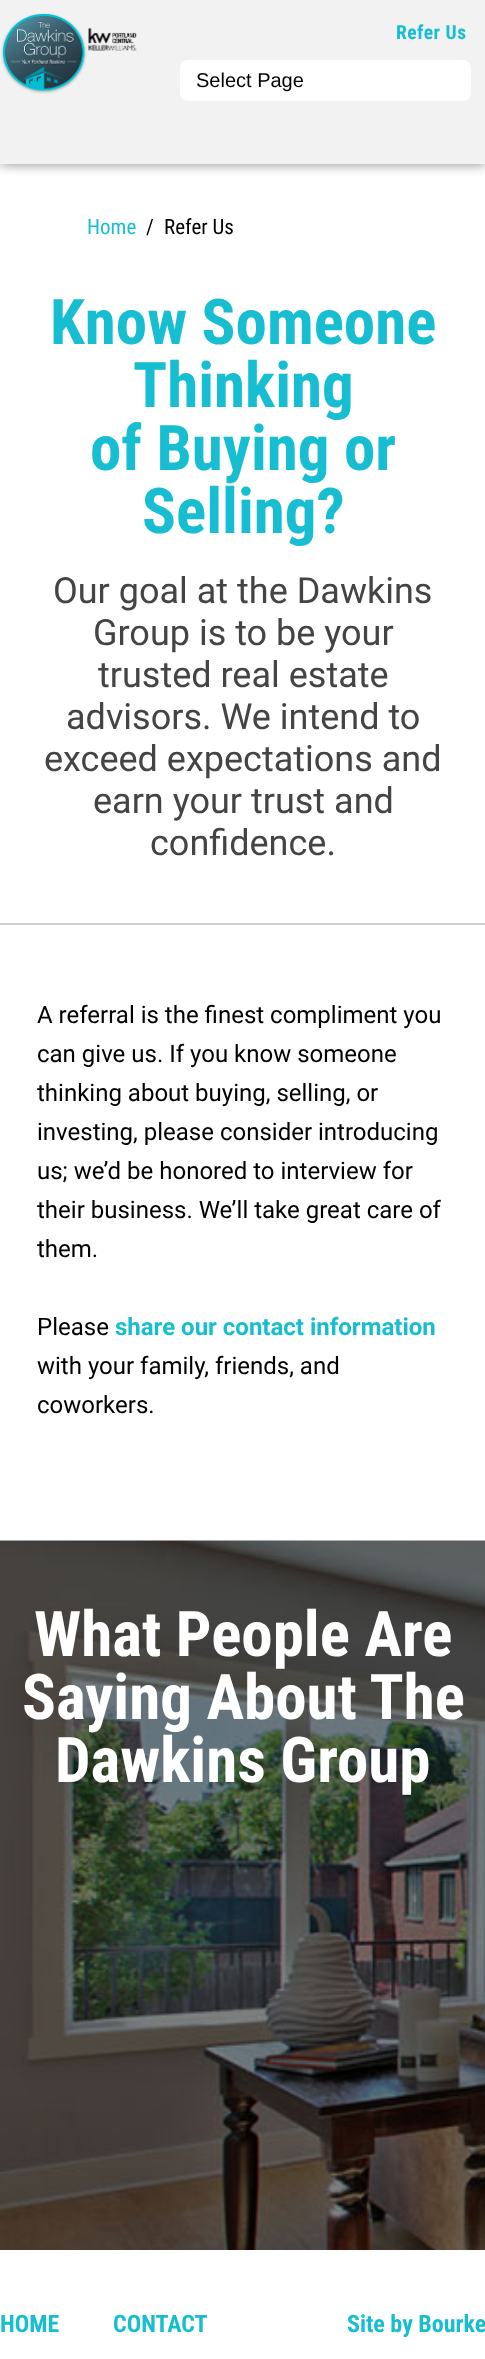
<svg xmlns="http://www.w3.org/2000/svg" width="485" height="2359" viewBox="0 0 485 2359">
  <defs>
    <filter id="blur1" x="-50%" y="-200%" width="200%" height="500%"><feGaussianBlur stdDeviation="6"/></filter>
  </defs>
  <rect width="100%" height="100%" fill="#ffffff"/>
  <rect x="0" y="2" width="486" height="163" fill="#000000" fill-opacity="0.4" filter="url(#blur1)"/>
  <rect x="0" y="0" width="485" height="164" fill="#f2f2f2"/>
  <image x="1" y="13" width="136" height="81" href="img1.png"/>
  <text x="396" y="39" font-family="Roboto Condensed" font-size="19.5" font-weight="bold" letter-spacing="0.5" fill="#17bed1">Refer Us</text>
  <rect x="181" y="61" width="289" height="39" rx="7" fill="#ffffff" stroke="#ffffff" stroke-width="2"/>
  <text x="196" y="87" font-family="Liberation Sans" font-size="20" fill="#000000">Select Page</text>
  <text x="87" y="234" font-family="Roboto Condensed" font-size="21" fill="#17bed1">Home</text>
  <text x="146" y="234" font-family="Roboto Condensed" font-size="21" fill="#000000">/</text>
  <text x="164" y="234" font-family="Roboto Condensed" font-size="21" fill="#000000">Refer Us</text>
  <text x="50" y="344" font-family="Roboto Condensed" font-size="63" font-weight="bold" fill="#17bed1">Know Someone</text>
  <text x="133" y="407" font-family="Roboto Condensed" font-size="63" font-weight="bold" fill="#17bed1">Thinking</text>
  <text x="90" y="470" font-family="Roboto Condensed" font-size="63" font-weight="bold" fill="#17bed1">of Buying or</text>
  <text x="142" y="533" font-family="Roboto Condensed" font-size="63" font-weight="bold" fill="#17bed1">Selling?</text>
  <rect x="0" y="923" width="485" height="2" fill="#cdd0d2"/>
  <text x="53" y="603" font-family="Roboto" font-size="36" fill="#444444">Our goal at the Dawkins</text>
  <text x="93" y="645" font-family="Roboto" font-size="36" fill="#444444">Group is to be your</text>
  <text x="98" y="687" font-family="Roboto" font-size="36" fill="#444444">trusted real estate</text>
  <text x="66" y="729" font-family="Roboto" font-size="36" fill="#444444">advisors. We intend to</text>
  <text x="44" y="771" font-family="Roboto" font-size="36" fill="#444444">exceed expectations and</text>
  <text x="93" y="813" font-family="Roboto" font-size="36" fill="#444444">earn your trust and</text>
  <text x="150" y="855" font-family="Roboto" font-size="36" fill="#444444">confidence.</text>
  <text x="37" y="1023" font-family="Roboto" font-size="24" fill="#000000">A referral is the finest compliment you</text>
  <text x="37" y="1062" font-family="Roboto" font-size="24" fill="#000000">can give us. If you know someone</text>
  <text x="37" y="1101" font-family="Roboto" font-size="24" fill="#000000">thinking about buying, selling, or</text>
  <text x="37" y="1140" font-family="Roboto" font-size="24" fill="#000000">investing, please consider introducing</text>
  <text x="37" y="1179" font-family="Roboto" font-size="24" fill="#000000">us; we’d be honored to interview for</text>
  <text x="37" y="1218" font-family="Roboto" font-size="24" fill="#000000">their business. We’ll take great care of</text>
  <text x="37" y="1257" font-family="Roboto" font-size="24" fill="#000000">them.</text>
  <text x="37" y="1335" font-family="Roboto" font-size="24" fill="#000000">Please</text>
  <text x="115" y="1335" font-family="Roboto" font-size="24" font-weight="bold" fill="#17bed1">share our contact information</text>
  <text x="37" y="1374" font-family="Roboto" font-size="24" fill="#000000">with your family, friends, and</text>
  <text x="37" y="1413" font-family="Roboto" font-size="24" fill="#000000">coworkers.</text>
  <image x="0" y="1540" width="485" height="710" href="img2.png"/>
  <text x="34" y="1656" font-family="Roboto Condensed" font-size="63" font-weight="bold" fill="#ffffff">What People Are</text>
  <text x="22" y="1719" font-family="Roboto Condensed" font-size="63" font-weight="bold" fill="#ffffff">Saying About The</text>
  <text x="55" y="1782" font-family="Roboto Condensed" font-size="63" font-weight="bold" fill="#ffffff">Dawkins Group</text>
  <text x="0" y="2332" font-family="Roboto Condensed" font-size="24" font-weight="bold" fill="#17bed1">HOME</text>
  <text x="113" y="2332" font-family="Roboto Condensed" font-size="24" font-weight="bold" fill="#17bed1">CONTACT</text>
  <text x="347" y="2332" font-family="Roboto Condensed" font-size="24" font-weight="bold" fill="#17bed1">Site by Bourke</text>
</svg>
